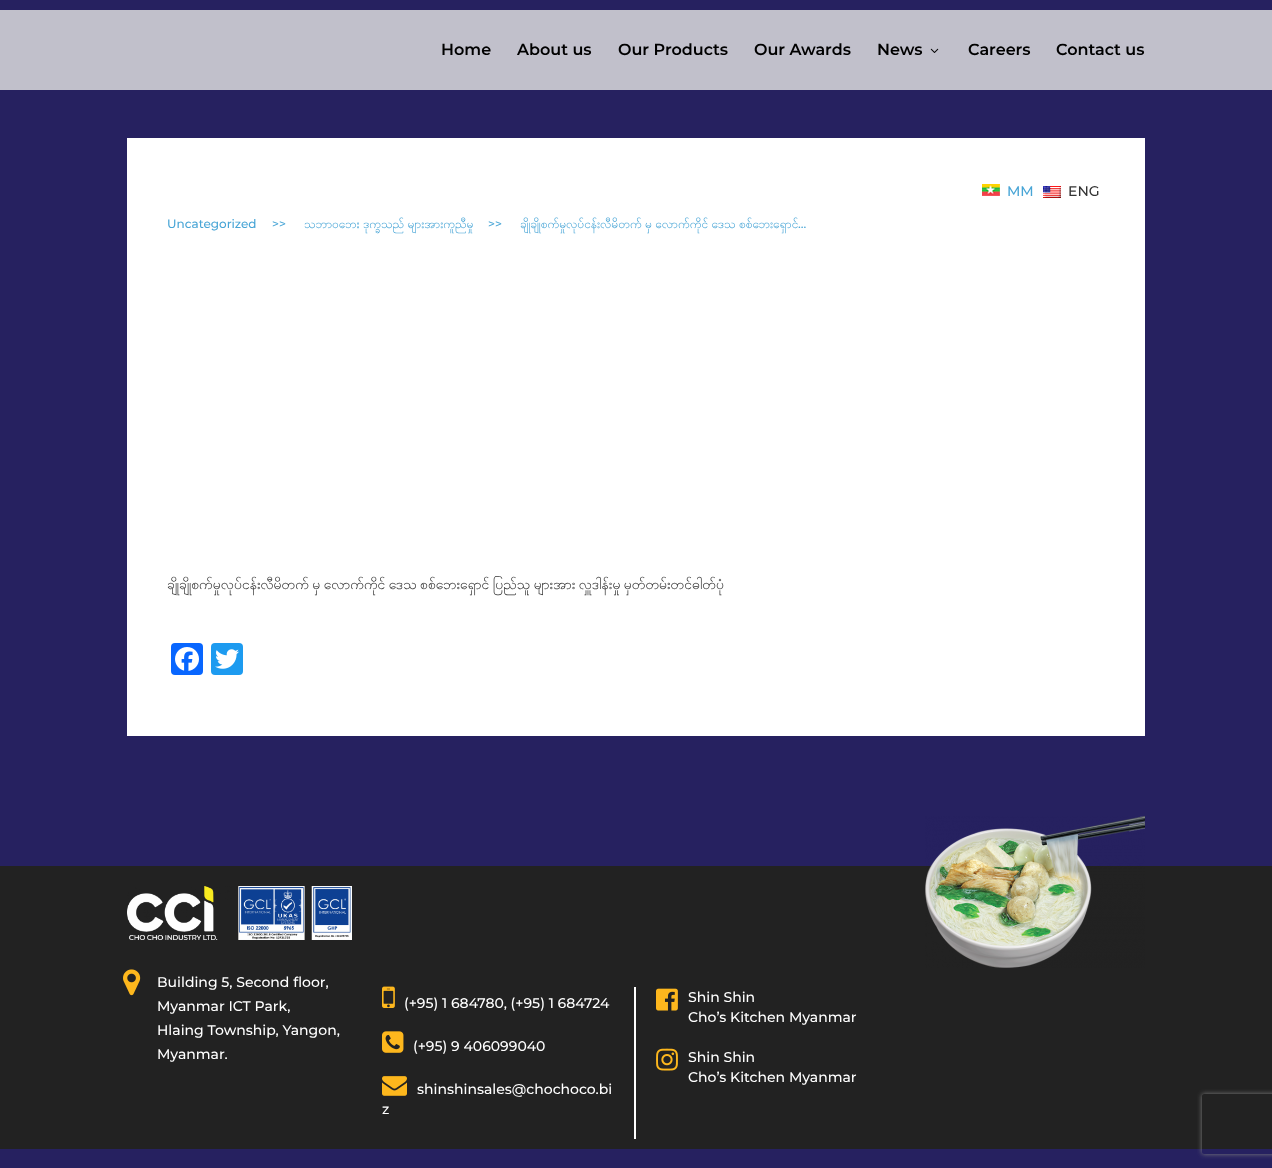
<svg xmlns="http://www.w3.org/2000/svg" width="1272" height="1168" viewBox="0 0 1272 1168">
  <defs>
    <clipPath id="clip1"><path d="M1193 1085H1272V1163H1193ZM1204 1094H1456C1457 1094 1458 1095 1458 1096V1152C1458 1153 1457 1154 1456 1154H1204C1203 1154 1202 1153 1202 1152V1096C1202 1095 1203 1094 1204 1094Z" clip-rule="evenodd"/></clipPath>
    <filter id="blur1" x="-50%" y="-200%" width="200%" height="500%"><feGaussianBlur stdDeviation="2.5"/></filter>
  </defs>
  <rect width="100%" height="100%" fill="#262160"/>
  <rect x="0" y="10" width="1272" height="80" fill="#c1c0cb"/>
  <text x="441" y="55" font-family="Montserrat" font-size="16" font-weight="600" fill="#000000">Home</text>
  <text x="517" y="55" font-family="Montserrat" font-size="16" font-weight="600" fill="#000000">About us</text>
  <text x="618" y="55" font-family="Montserrat" font-size="16" font-weight="600" fill="#000000">Our Products</text>
  <text x="754" y="55" font-family="Montserrat" font-size="16" font-weight="600" fill="#000000">Our Awards</text>
  <text x="877" y="55" font-family="Montserrat" font-size="16" font-weight="600" fill="#000000">News</text>
  <image x="930" y="48" width="9" height="5" href="img1.png"/>
  <text x="968" y="55" font-family="Montserrat" font-size="16" font-weight="600" fill="#000000">Careers</text>
  <text x="1056" y="55" font-family="Montserrat" font-size="16" font-weight="600" fill="#000000">Contact us</text>
  <rect x="127" y="138" width="1018" height="598" fill="#ffffff"/>
  <image x="982" y="184" width="18" height="12" href="img2.png"/>
  <text x="1007" y="196" font-family="Montserrat" font-size="14" font-weight="500" fill="#48a5d6">MM</text>
  <image x="1043" y="186" width="18" height="12" href="img3.png"/>
  <text x="1068" y="196" font-family="Montserrat" font-size="14" font-weight="500" fill="#333333">ENG</text>
  <text x="167" y="228" font-family="Montserrat" font-size="12" font-weight="500" fill="#48a5d6">Uncategorized</text>
  <text x="272" y="228" font-family="Montserrat" font-size="12" font-weight="500" fill="#48a5d6">&gt;&gt;</text>
  <text x="304" y="228" word-spacing="-1" font-family="Padauk" font-size="12" fill="#48a5d6">သဘာဝဘေး ဒုက္ခသည် များအားကူညီမှု</text>
  <text x="488" y="228" font-family="Montserrat" font-size="12" font-weight="500" fill="#48a5d6">&gt;&gt;</text>
  <text x="520" y="228" word-spacing="-1" font-family="Padauk" font-size="12" fill="#48a5d6">ချိုချိုစက်မှုလုပ်ငန်းလီမိတက် မှ လောက်ကိုင် ဒေသ စစ်ဘေးရှောင်</text>
  <text x="798" y="228" font-family="Montserrat" font-size="12" font-weight="500" fill="#48a5d6">...</text>
  <text x="167" y="589" word-spacing="-1.75" font-family="Padauk" font-size="14" fill="#333333">ချိုချိုစက်မှုလုပ်ငန်းလီမိတက် မှ လောက်ကိုင် ဒေသ စစ်ဘေးရှောင် ပြည်သူ များအား လှူဒါန်းမှု မှတ်တမ်းတင်ဓါတ်ပုံ</text>
  <rect x="171" y="643" width="32" height="32" rx="4" fill="#0866ff"/>
  <image x="175" y="647" width="24" height="24" href="img4.png"/>
  <rect x="211" y="643" width="32" height="32" rx="4" fill="#1d9bf0"/>
  <image x="215" y="649" width="24" height="20" href="img5.png"/>
  <rect x="0" y="866" width="1272" height="283" fill="#222222"/>
  <image x="925" y="816" width="220" height="152" href="img6.png"/>
  <image x="127" y="886" width="225" height="54" href="img7.png"/>
  <image x="123" y="969" width="18" height="27" href="img8.png"/>
  <text x="157" y="987" font-family="Montserrat" font-size="14" font-weight="500" fill="#ffffff">Building 5, Second floor,</text>
  <text x="157" y="1011" font-family="Montserrat" font-size="14" font-weight="500" fill="#ffffff">Myanmar ICT Park,</text>
  <text x="157" y="1035" font-family="Montserrat" font-size="14" font-weight="500" fill="#ffffff">Hlaing Township, Yangon,</text>
  <text x="157" y="1059" font-family="Montserrat" font-size="14" font-weight="500" fill="#ffffff">Myanmar.</text>
  <rect x="634" y="987" width="2" height="152" fill="#ffffff"/>
  <image x="382" y="986" width="13" height="22" href="img9.png"/>
  <text x="404" y="1008" font-family="Montserrat" font-size="14" font-weight="500" fill="#ffffff">(+95) 1 684780, (+95) 1 684724</text>
  <image x="382" y="1031" width="22" height="22" href="img10.png"/>
  <text x="413" y="1051" font-family="Montserrat" font-size="14" font-weight="500" fill="#ffffff">(+95) 9 406099040</text>
  <image x="382" y="1076" width="25" height="20" href="img11.png"/>
  <text x="417" y="1094" font-family="Montserrat" font-size="14" font-weight="500" fill="#ffffff">shinshinsales@chochoco.bi</text>
  <text x="382" y="1114" font-family="Montserrat" font-size="14" font-weight="500" fill="#ffffff">z</text>
  <image x="656" y="988" width="22" height="23" href="img12.png"/>
  <text x="688" y="1002" font-family="Montserrat" font-size="14" font-weight="500" fill="#ffffff">Shin Shin</text>
  <text x="688" y="1022" font-family="Montserrat" font-size="14" font-weight="500" fill="#ffffff">Cho’s Kitchen Myanmar</text>
  <image x="656" y="1048" width="22" height="23" href="img13.png"/>
  <text x="688" y="1062" font-family="Montserrat" font-size="14" font-weight="500" fill="#ffffff">Shin Shin</text>
  <text x="688" y="1082" font-family="Montserrat" font-size="14" font-weight="500" fill="#ffffff">Cho’s Kitchen Myanmar</text>
  <g clip-path="url(#clip1)">
    <rect x="1202" y="1094" width="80" height="60" rx="2" fill="#808080" filter="url(#blur1)"/>
  </g>
</svg>
